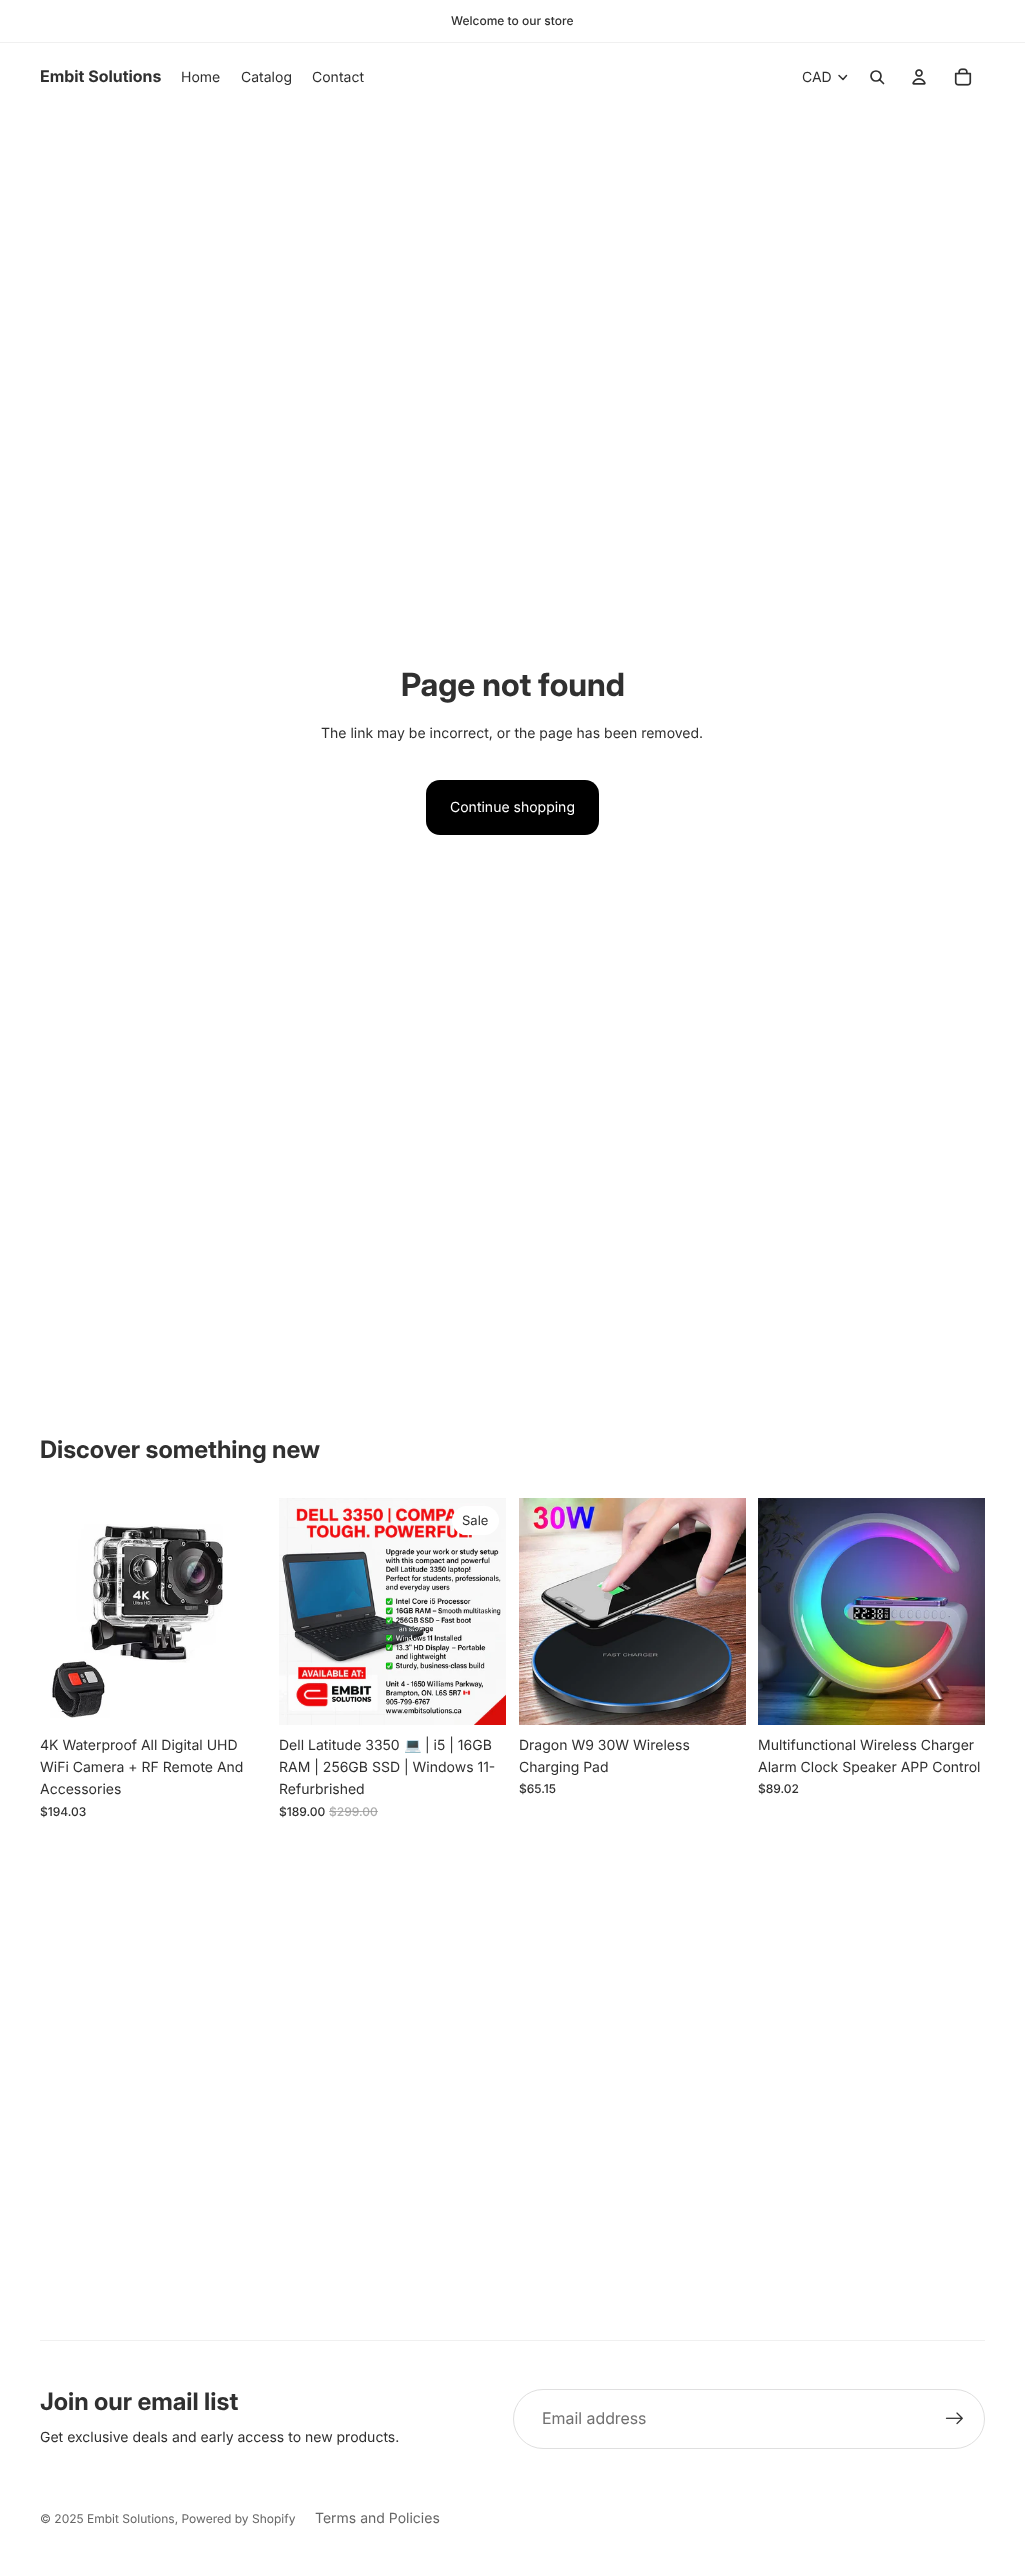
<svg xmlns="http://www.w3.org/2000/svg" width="1025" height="2558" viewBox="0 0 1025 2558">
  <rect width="100%" height="100%" fill="#ffffff"/>
  <rect x="0" y="42" width="1025" height="1" fill="#f0f0f0"/>
  <text x="451" y="25" font-family="Inter" font-size="12" font-weight="500" fill="#303030">Welcome to our store</text>
  <text x="40" y="82" font-family="'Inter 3'" font-size="16" font-weight="bold" fill="#303030">Embit Solutions</text>
  <text x="181" y="82" font-family="Inter" font-size="14" fill="#303030">Home</text>
  <text x="241" y="82" font-family="Inter" font-size="14" fill="#303030">Catalog</text>
  <text x="312" y="82" font-family="Inter" font-size="14" fill="#303030">Contact</text>
  <text x="802" y="82" font-family="Inter" font-size="14" fill="#303030">CAD</text>
  <path d="M846.5 75.5L843 79.5L839 75.5" fill="none" stroke="#303030" stroke-width="1.5" stroke-linecap="round" stroke-linejoin="round"/>
  <circle cx="876" cy="76" r="5" fill="none" stroke="#303030" stroke-width="1.7"/>
  <path d="M880 80L883.5 83.5" fill="none" stroke="#000000" stroke-opacity="0.81" stroke-width="1.7" stroke-linecap="round" stroke-linejoin="round"/>
  <image x="912" y="69" width="14" height="16" href="img1.png"/>
  <image x="954" y="68" width="18" height="18" href="img2.png"/>
  <text x="401" y="696" font-family="Inter" font-size="32" font-weight="bold" fill="#303030">Page not found</text>
  <text x="321" y="738" font-family="Inter" font-size="14" fill="#303030">The link may be incorrect, or the page has been removed.</text>
  <rect x="426" y="780" width="173" height="55" rx="14" fill="#000000"/>
  <text x="450" y="812" font-family="Inter" font-size="14" fill="#ffffff">Continue shopping</text>
  <text x="40" y="1458" font-family="'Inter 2'" font-size="24" font-weight="bold" fill="#303030">Discover something new</text>
  <image x="50" y="1524" width="173" height="194" href="img3.png"/>
  <text x="40" y="1750" font-family="Inter" font-size="14" fill="#303030">4K Waterproof All Digital UHD</text>
  <text x="40" y="1772" font-family="Inter" font-size="14" fill="#303030">WiFi Camera + RF Remote And</text>
  <text x="40" y="1794" font-family="Inter" font-size="14" fill="#303030">Accessories</text>
  <text x="40" y="1816" font-family="Inter" font-size="12" font-weight="500" fill="#303030">$194.03</text>
  <image x="279" y="1498" width="227" height="227" href="img4.png"/>
  <rect x="452" y="1506" width="47" height="29" rx="14.5" fill="#ffffff"/>
  <text x="462" y="1525" font-family="Inter" font-size="13" fill="#303030">Sale</text>
  <text x="279" y="1750" font-family="Inter" font-size="14" fill="#303030">Dell Latitude 3350</text>
  <text x="404" y="1750" font-family="Noto Color Emoji" font-size="14" fill="#303030">💻</text>
  <text x="425" y="1750" font-family="Inter" font-size="14" fill="#303030">| i5 | 16GB</text>
  <text x="279" y="1772" font-family="Inter" font-size="14" fill="#303030">RAM | 256GB SSD | Windows 11-</text>
  <text x="279" y="1794" font-family="Inter" font-size="14" fill="#303030">Refurbrished</text>
  <text x="279" y="1816" font-family="Inter" font-size="12" font-weight="500" fill="#303030">$189.00</text>
  <text x="329" y="1816" font-family="Inter" font-size="12" font-weight="500" fill="#acacac">$299.00</text>
  <rect x="329" y="1811" width="49" height="1" fill="#999999" fill-opacity="0.81"/>
  <image x="519" y="1498" width="227" height="227" href="img5.png"/>
  <text x="519" y="1750" font-family="Inter" font-size="14" fill="#303030">Dragon W9 30W Wireless</text>
  <text x="519" y="1772" font-family="Inter" font-size="14" fill="#303030">Charging Pad</text>
  <text x="519" y="1793" font-family="Inter" font-size="12" font-weight="500" fill="#303030">$65.15</text>
  <image x="758" y="1498" width="227" height="227" href="img6.png"/>
  <text x="758" y="1750" font-family="Inter" font-size="14" fill="#303030">Multifunctional Wireless Charger</text>
  <text x="758" y="1772" font-family="Inter" font-size="14" fill="#303030">Alarm Clock Speaker APP Control</text>
  <text x="758" y="1793" font-family="Inter" font-size="12" font-weight="500" fill="#303030">$89.02</text>
  <path d="M985 2340V2341L984 2340Z" fill="#f0f0f0"/>
  <path d="M985 2341H40V2340H984Z" fill="#000000" fill-opacity="0.06"/>
  <text x="40" y="2410" font-family="'Inter 2'" font-size="24" font-weight="bold" fill="#303030">Join our email list</text>
  <text x="40" y="2442" font-family="Inter" font-size="14" fill="#303030">Get exclusive deals and early access to new products.</text>
  <rect x="513.5" y="2389.5" width="471" height="59" rx="29.5" fill="none" stroke="#dfdfdf"/>
  <text x="542" y="2424" font-family="'Inter 2'" font-size="16" fill="#707070">Email address</text>
  <image x="945" y="2412" width="18" height="13" href="img7.png"/>
  <text x="40" y="2523" font-family="Inter" font-size="12" fill="#666666">© 2025 Embit Solutions, Powered by Shopify</text>
  <text x="315" y="2523" font-family="Inter" font-size="14" fill="#666666">Terms and Policies</text>
</svg>
